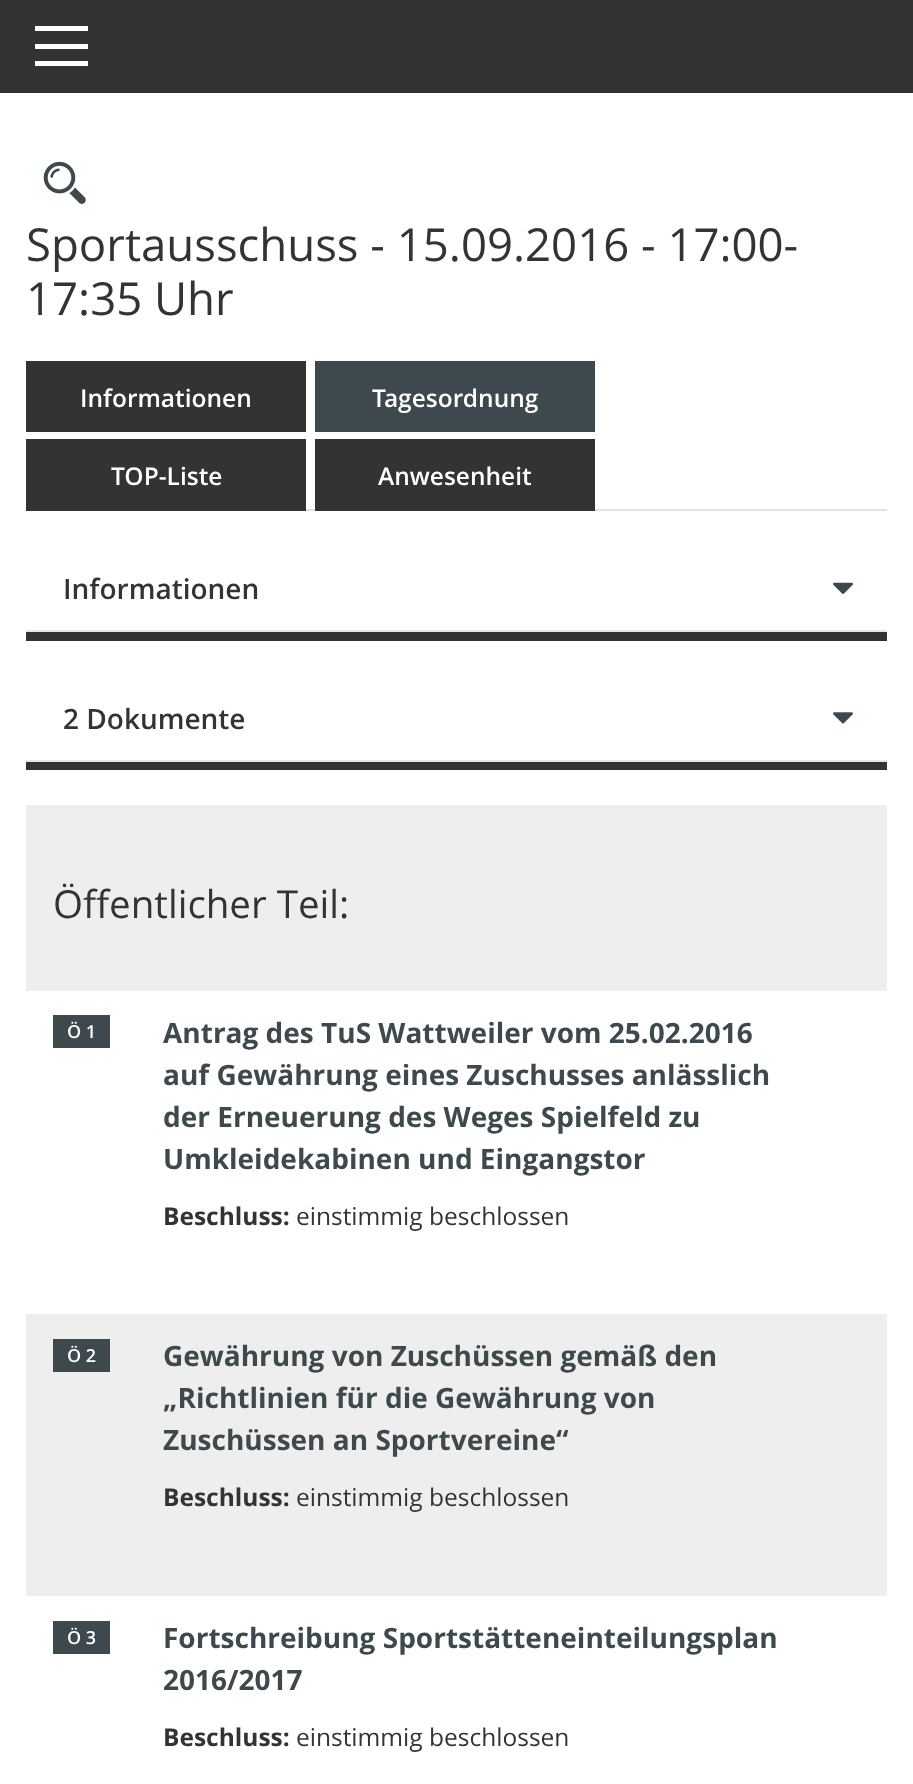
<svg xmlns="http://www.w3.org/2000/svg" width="913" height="1784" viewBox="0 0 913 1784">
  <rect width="100%" height="100%" fill="#ffffff"/>
  <rect x="0" y="0" width="913" height="93" fill="#333333"/>
  <rect x="35" y="26" width="53" height="5" fill="#ffffff"/>
  <rect x="35" y="44" width="53" height="5" fill="#ffffff"/>
  <rect x="35" y="61" width="53" height="5" fill="#ffffff"/>
  <image x="43" y="161" width="43" height="43" href="img1.png"/>
  <text x="26" y="261" font-family="Open Sans" font-size="45.5" fill="#333333">Sportausschuss - 15.09.2016 - 17:00-</text>
  <text x="26" y="315" font-family="Open Sans" font-size="45.5" fill="#333333">17:35 Uhr</text>
  <rect x="306" y="509" width="581" height="2" fill="#dee2e6"/>
  <rect x="26" y="361" width="280" height="71" fill="#333333"/>
  <text x="80" y="407" font-family="Open Sans" font-size="24.5" font-weight="600" fill="#ffffff">Informationen</text>
  <rect x="315" y="361" width="280" height="71" fill="#3e494d"/>
  <text x="372" y="407" font-family="Open Sans" font-size="24.5" font-weight="600" fill="#ffffff">Tagesordnung</text>
  <rect x="26" y="439" width="280" height="72" fill="#333333"/>
  <text x="111" y="485" font-family="Open Sans" font-size="24.5" font-weight="600" fill="#ffffff">TOP-Liste</text>
  <rect x="315" y="439" width="280" height="72" fill="#333333"/>
  <text x="378" y="485" font-family="Open Sans" font-size="24.5" font-weight="600" fill="#ffffff">Anwesenheit</text>
  <rect x="26" y="632" width="861" height="9" fill="#333333"/>
  <rect x="26" y="630" width="861" height="2" fill="#e6e6e6"/>
  <text x="63" y="599" font-family="Open Sans" font-size="28" font-weight="600" fill="#333333">Informationen</text>
  <image x="833" y="582" width="20" height="12" href="img2.png"/>
  <rect x="26" y="762" width="861" height="8" fill="#333333"/>
  <rect x="26" y="760" width="861" height="2" fill="#e6e6e6"/>
  <text x="63" y="729" font-family="Open Sans" font-size="28" font-weight="600" fill="#333333">2 Dokumente</text>
  <image x="833" y="712" width="20" height="12" href="img3.png"/>
  <rect x="26" y="805" width="861" height="186" fill="#eeeeee"/>
  <text x="53" y="918" font-family="Open Sans" font-size="38.5" fill="#333333">Öffentlicher Teil:</text>
  <rect x="53" y="1015" width="57" height="33" fill="#3e494d"/>
  <text x="67" y="1038" font-family="Open Sans" font-size="18" font-weight="600" fill="#ffffff">Ö 1</text>
  <text x="163" y="1043" font-family="Open Sans" font-size="28" font-weight="bold" fill="#3e494d">Antrag des TuS Wattweiler vom 25.02.2016</text>
  <text x="163" y="1085" font-family="Open Sans" font-size="28" font-weight="bold" fill="#3e494d">auf Gewährung eines Zuschusses anlässlich</text>
  <text x="163" y="1127" font-family="Open Sans" font-size="28" font-weight="bold" fill="#3e494d">der Erneuerung des Weges Spielfeld zu</text>
  <text x="163" y="1169" font-family="Open Sans" font-size="28" font-weight="bold" fill="#3e494d">Umkleidekabinen und Eingangstor</text>
  <text x="163" y="1225" font-family="Open Sans" font-size="24.5" font-weight="bold" fill="#333333">Beschluss:</text>
  <text x="296" y="1225" font-family="Open Sans" font-size="24.5" fill="#333333">einstimmig beschlossen</text>
  <rect x="26" y="1314" width="861" height="282" fill="#eeeeee"/>
  <rect x="53" y="1339" width="57" height="33" fill="#3e494d"/>
  <text x="67" y="1362" font-family="Open Sans" font-size="18" font-weight="600" fill="#ffffff">Ö 2</text>
  <text x="163" y="1366" font-family="Open Sans" font-size="28" font-weight="bold" fill="#3e494d">Gewährung von Zuschüssen gemäß den</text>
  <text x="163" y="1408" font-family="Open Sans" font-size="28" font-weight="bold" fill="#3e494d">„Richtlinien für die Gewährung von</text>
  <text x="163" y="1450" font-family="Open Sans" font-size="28" font-weight="bold" fill="#3e494d">Zuschüssen an Sportvereine“</text>
  <text x="163" y="1506" font-family="Open Sans" font-size="24.5" font-weight="bold" fill="#333333">Beschluss:</text>
  <text x="296" y="1506" font-family="Open Sans" font-size="24.5" fill="#333333">einstimmig beschlossen</text>
  <rect x="53" y="1621" width="57" height="33" fill="#3e494d"/>
  <text x="67" y="1644" font-family="Open Sans" font-size="18" font-weight="600" fill="#ffffff">Ö 3</text>
  <text x="163" y="1648" font-family="Open Sans" font-size="28" font-weight="bold" fill="#3e494d">Fortschreibung Sportstätteneinteilungsplan</text>
  <text x="163" y="1690" font-family="Open Sans" font-size="28" font-weight="bold" fill="#3e494d">2016/2017</text>
  <text x="163" y="1746" font-family="Open Sans" font-size="24.5" font-weight="bold" fill="#333333">Beschluss:</text>
  <text x="296" y="1746" font-family="Open Sans" font-size="24.5" fill="#333333">einstimmig beschlossen</text>
</svg>
